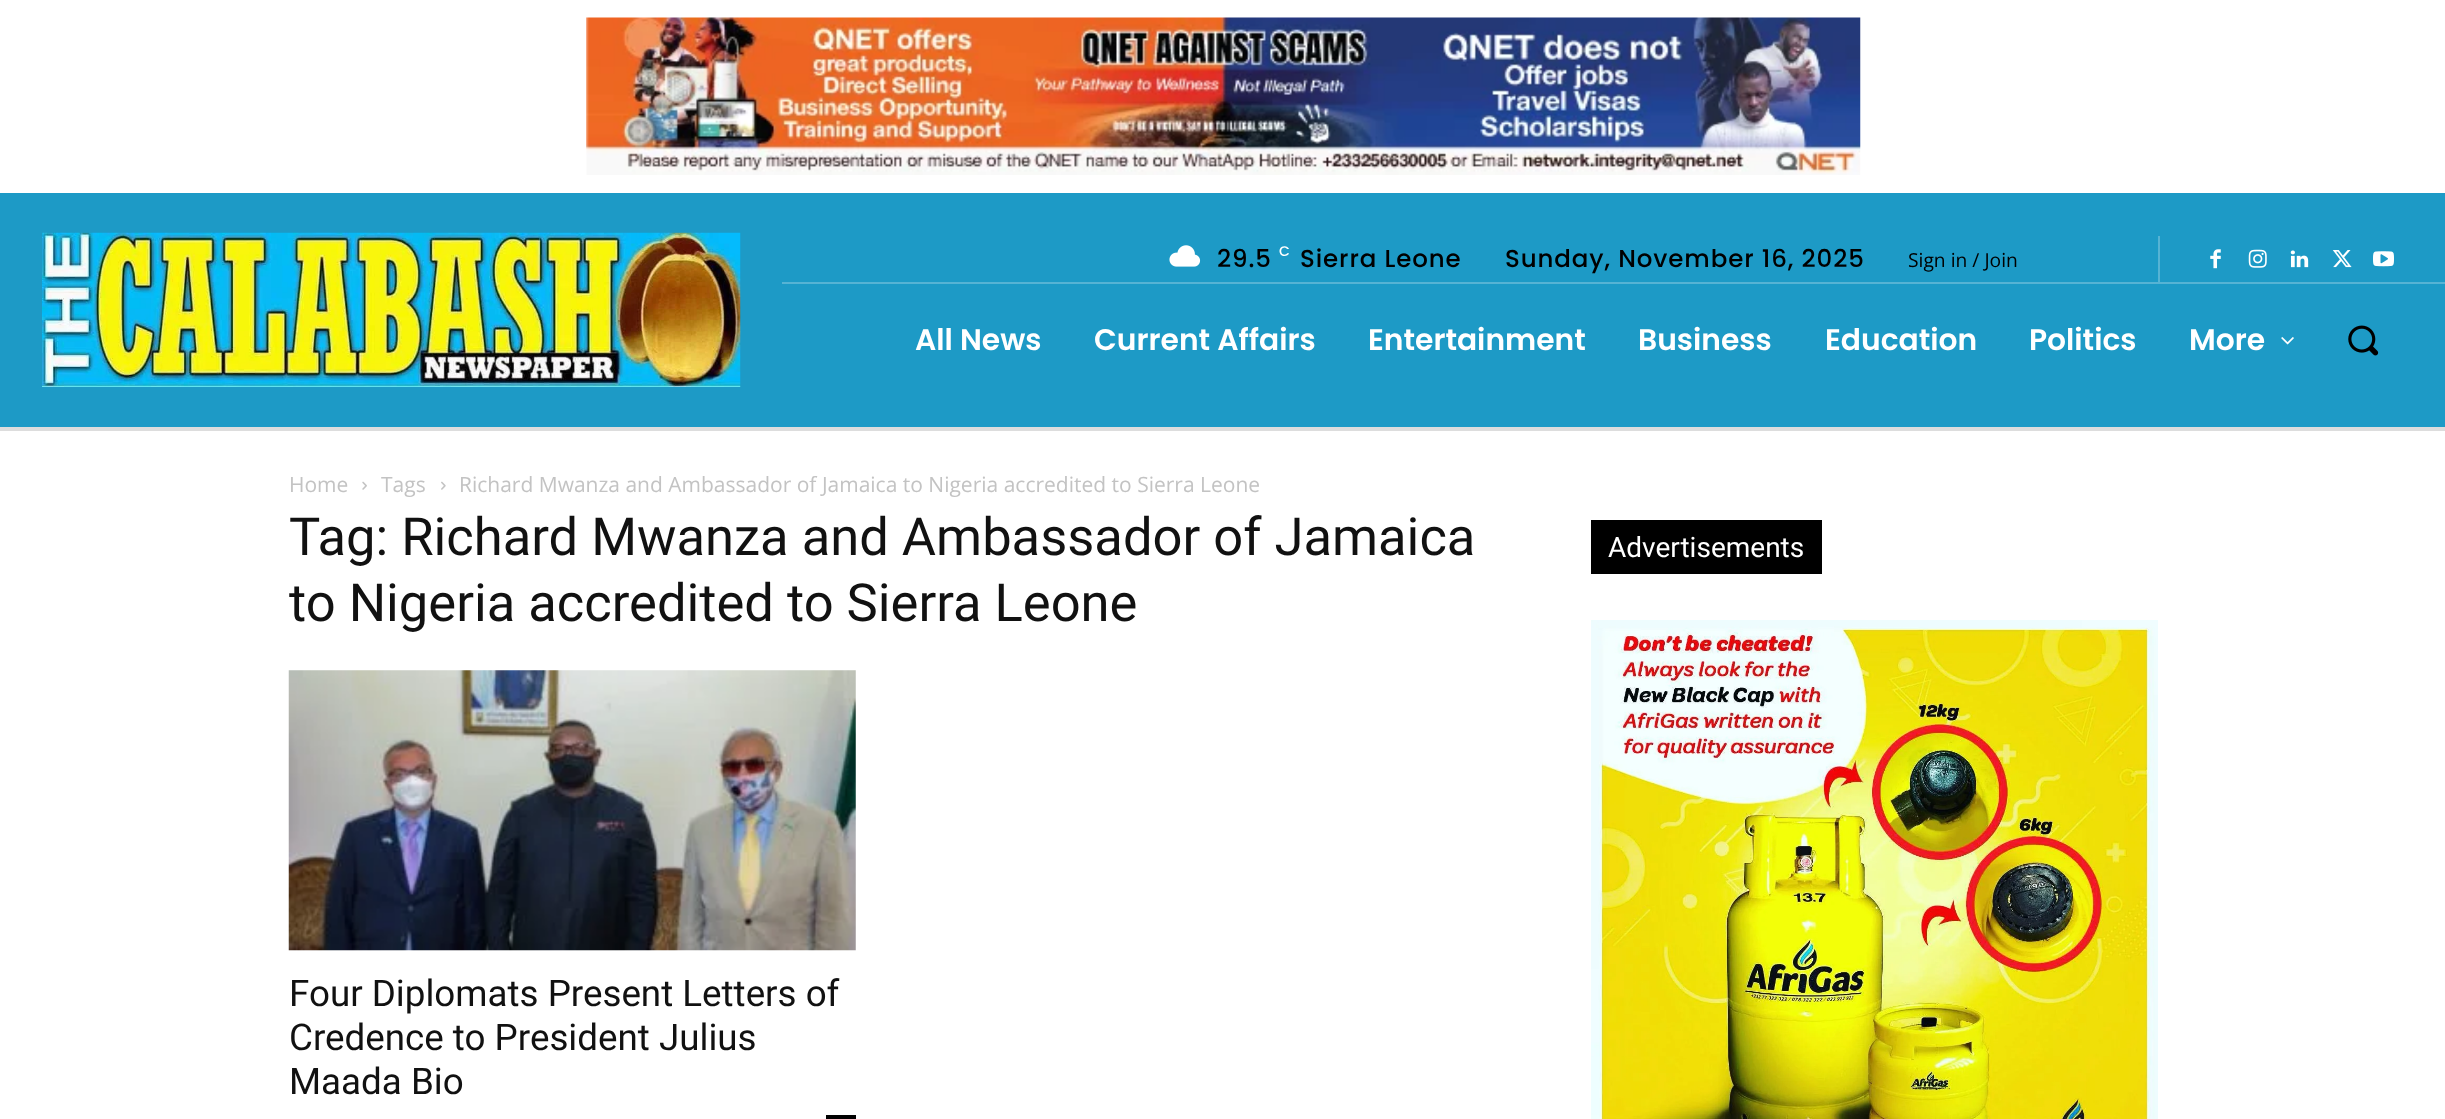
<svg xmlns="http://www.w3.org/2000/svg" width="2445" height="1119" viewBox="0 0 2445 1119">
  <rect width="100%" height="100%" fill="#ffffff"/>
  <image x="586" y="17" width="1275" height="158" href="img1.png"/>
  <rect x="0" y="193" width="2445" height="234" fill="#1d9ac6"/>
  <image x="42" y="232" width="699" height="155" href="img2.png"/>
  <image x="1169" y="245" width="32" height="22" href="img3.png"/>
  <text x="1217" y="267" font-family="Poppins" font-size="24.5" font-weight="500" letter-spacing="0.9" fill="#000000">29.5</text>
  <text x="1279" y="256" font-family="Poppins" font-size="14" font-weight="500" letter-spacing="0.9" fill="#ffffff">C</text>
  <text x="1300" y="267" font-family="Poppins" font-size="24.5" font-weight="500" letter-spacing="0.9" fill="#000000">Sierra Leone</text>
  <text x="1505" y="267" font-family="Poppins" font-size="24.5" font-weight="500" letter-spacing="0.9" fill="#000000">Sunday, November 16, 2025</text>
  <text x="1908" y="267" font-family="Open Sans" font-size="19.25" fill="#000000">Sign in / Join</text>
  <rect x="2158" y="236" width="2" height="46" fill="#56b3d4"/>
  <image x="2210" y="249" width="11" height="20" href="img4.png"/>
  <image x="2248" y="249" width="19" height="19" href="img5.png"/>
  <image x="2290" y="250" width="19" height="18" href="img6.png"/>
  <image x="2332" y="250" width="20" height="18" href="img7.png"/>
  <image x="2373" y="251" width="21" height="16" href="img8.png"/>
  <rect x="782" y="282" width="1663" height="2" fill="#56b3d4"/>
  <text x="915" y="350" font-family="Poppins" font-size="29.75" font-weight="600" fill="#ffffff">All News</text>
  <text x="1094" y="350" font-family="Poppins" font-size="29.75" font-weight="600" fill="#ffffff">Current Affairs</text>
  <text x="1368" y="350" font-family="Poppins" font-size="29.75" font-weight="600" fill="#ffffff">Entertainment</text>
  <text x="1638" y="350" font-family="Poppins" font-size="29.75" font-weight="600" fill="#ffffff">Business</text>
  <text x="1825" y="350" font-family="Poppins" font-size="29.75" font-weight="600" fill="#ffffff">Education</text>
  <text x="2029" y="350" font-family="Poppins" font-size="29.75" font-weight="600" fill="#ffffff">Politics</text>
  <text x="2189" y="350" font-family="Poppins" font-size="29.75" font-weight="600" fill="#ffffff">More</text>
  <image x="2281" y="337" width="13" height="8" href="img9.png"/>
  <image x="2348" y="325" width="31" height="31" href="img10.png"/>
  <rect x="0" y="427" width="2445" height="4" fill="#dddddd"/>
  <text x="289" y="492" font-family="Open Sans" font-size="21" fill="#c3c3c3">Home</text>
  <image x="362" y="481" width="5" height="9" href="img11.png"/>
  <text x="381" y="492" font-family="Open Sans" font-size="21" fill="#c3c3c3">Tags</text>
  <image x="441" y="481" width="5" height="9" href="img12.png"/>
  <text x="459" y="492" font-family="Open Sans" font-size="21" fill="#c3c3c3">Richard Mwanza and Ambassador of Jamaica to Nigeria accredited to Sierra Leone</text>
  <text x="289" y="555" font-family="Roboto" font-size="52.5" fill="#111111">Tag: Richard Mwanza and Ambassador of Jamaica</text>
  <text x="289" y="621" font-family="Roboto" font-size="52.5" fill="#111111">to Nigeria accredited to Sierra Leone</text>
  <image x="288" y="670" width="568" height="281" href="img13.png"/>
  <text x="289" y="1006" font-family="Roboto" font-size="36.75" fill="#111111">Four Diplomats Present Letters of</text>
  <text x="289" y="1050" font-family="Roboto" font-size="36.75" fill="#111111">Credence to President Julius</text>
  <text x="289" y="1094" font-family="Roboto" font-size="36.75" fill="#111111">Maada Bio</text>
  <rect x="826" y="1115" width="30" height="4" fill="#000000"/>
  <rect x="1591" y="520" width="231" height="54" fill="#000000"/>
  <text x="1608" y="557" font-family="Roboto" font-size="28" fill="#ffffff">Advertisements</text>
  <image x="1591" y="620" width="567" height="499" href="img14.png"/>
</svg>
